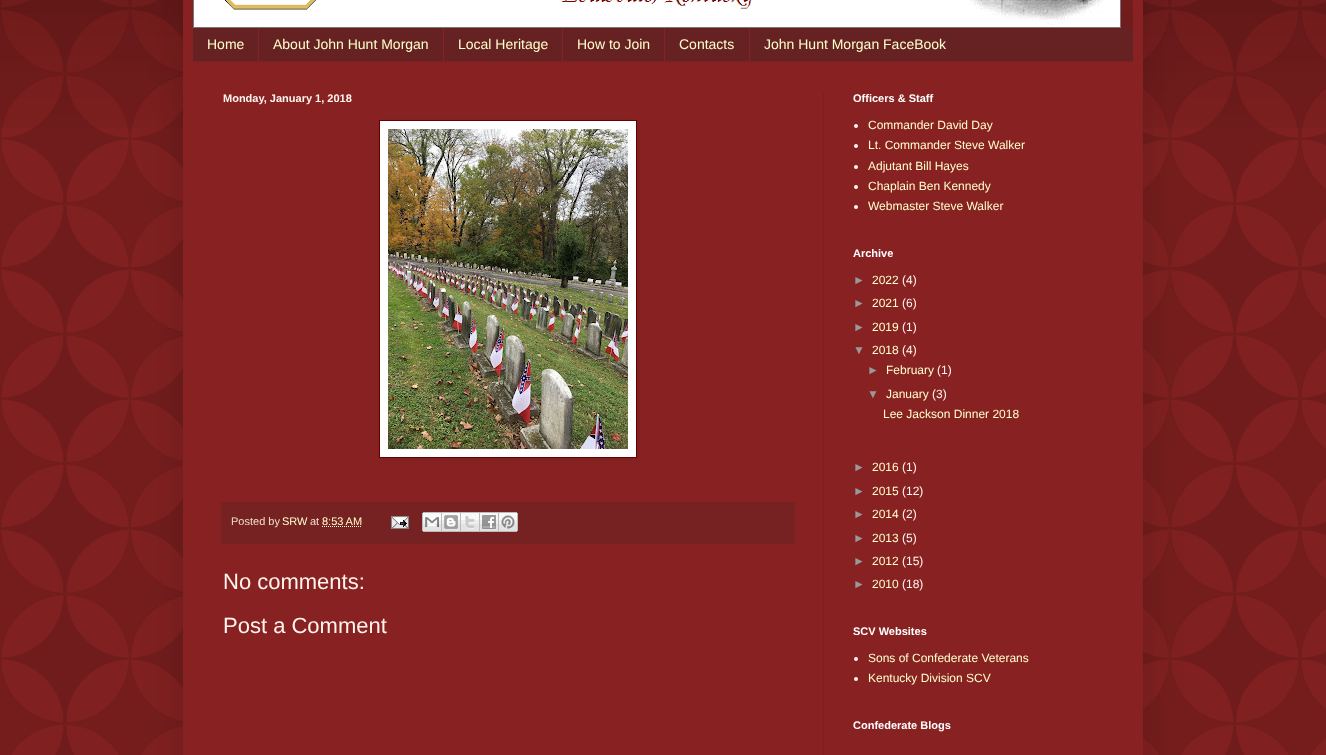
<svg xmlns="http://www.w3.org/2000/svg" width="1326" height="755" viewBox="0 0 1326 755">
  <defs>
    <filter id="blur1" x="-50%" y="-200%" width="200%" height="500%"><feGaussianBlur stdDeviation="20"/></filter>
    <filter id="blur2" x="-50%" y="-200%" width="200%" height="500%"><feGaussianBlur stdDeviation="2.5"/></filter>
  </defs>
  <rect width="100%" height="100%" fill="#882222"/>
  <image x="0" y="0" width="1326" height="755" href="img1.png"/>
  <image x="0" y="0" width="1326" height="128" href="img2.png"/>
  <rect x="183" y="-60" width="960" height="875" fill="#000000" fill-opacity="0.15" filter="url(#blur1)"/>
  <rect x="183" y="0" width="960" height="755" fill="#882222"/>
  <image x="1121" y="0" width="12" height="28" href="img3.png"/>
  <image x="193" y="0" width="928" height="28" href="img4.png"/>
  <rect x="193" y="28" width="940" height="33" fill="#662222"/>
  <rect x="193" y="61" width="940" height="1" fill="#772222"/>
  <text x="207" y="49" font-family="Liberation Sans" font-size="14" fill="#ffffcc">Home</text>
  <rect x="258" y="28" width="1" height="33" fill="#882222"/>
  <text x="273" y="49" font-family="Liberation Sans" font-size="14" fill="#ffffcc">About John Hunt Morgan</text>
  <rect x="443" y="28" width="1" height="33" fill="#882222"/>
  <text x="458" y="49" font-family="Liberation Sans" font-size="14" fill="#ffffcc">Local Heritage</text>
  <rect x="562" y="28" width="1" height="33" fill="#882222"/>
  <text x="577" y="49" font-family="Liberation Sans" font-size="14" fill="#ffffcc">How to Join</text>
  <rect x="664" y="28" width="1" height="33" fill="#882222"/>
  <text x="679" y="49" font-family="Liberation Sans" font-size="14" fill="#ffffcc">Contacts</text>
  <rect x="749" y="28" width="1" height="33" fill="#882222"/>
  <text x="764" y="49" font-family="Liberation Sans" font-size="14" fill="#ffffcc">John Hunt Morgan FaceBook</text>
  <rect x="823" y="92" width="1" height="663" fill="#772222"/>
  <text x="223" y="102" font-family="Liberation Sans" font-size="11" font-weight="bold" fill="#fff5ee">Monday, January 1, 2018</text>
  <rect x="380" y="121" width="258" height="338" fill="#000000" fill-opacity="0.1" filter="url(#blur2)"/>
  <rect x="379.5" y="120.5" width="257" height="337" fill="#ffffff" stroke="#660000"/>
  <image x="388" y="129" width="240" height="320" href="img5.png"/>
  <rect x="221" y="502" width="574" height="42" fill="#772222"/>
  <text x="231" y="525" font-family="Liberation Sans" font-size="11" fill="#eeddcc">Posted by</text>
  <text x="282" y="525" font-family="Liberation Sans" font-size="11" fill="#ffffcc">SRW</text>
  <text x="310" y="525" font-family="Liberation Sans" font-size="11" fill="#eeddcc">at</text>
  <text x="322" y="525" font-family="Liberation Sans" font-size="11" fill="#ffffcc">8:53 AM</text>
  <path d="M322 526.5H361.5" fill="none" stroke="#ffffcc" stroke-dasharray="1 1"/>
  <image x="391" y="516" width="18" height="13" href="img6.png"/>
  <image x="422" y="512" width="20" height="20" href="img7.png"/>
  <image x="442" y="512" width="19" height="20" href="img8.png"/>
  <image x="461" y="512" width="19" height="20" href="img9.png"/>
  <image x="480" y="512" width="19" height="20" href="img10.png"/>
  <image x="499" y="512" width="19" height="20" href="img11.png"/>
  <text x="223" y="589" font-family="Liberation Sans" font-size="22" fill="#fff5ee">No comments:</text>
  <text x="223" y="633" font-family="Liberation Sans" font-size="22" fill="#fff5ee">Post a Comment</text>
  <text x="853" y="102" font-family="Liberation Sans" font-size="11" font-weight="bold" fill="#ffffff">Officers &amp; Staff</text>
  <circle cx="856" cy="126" r="2" fill="#fff5ee"/>
  <text x="868" y="129" font-family="Liberation Sans" font-size="12" fill="#ffffcc">Commander David Day</text>
  <circle cx="856" cy="146" r="2" fill="#fff5ee"/>
  <text x="868" y="149" font-family="Liberation Sans" font-size="12" fill="#ffffcc">Lt. Commander Steve Walker</text>
  <circle cx="856" cy="167" r="2" fill="#fff5ee"/>
  <text x="868" y="170" font-family="Liberation Sans" font-size="12" fill="#ffffcc">Adjutant Bill Hayes</text>
  <circle cx="856" cy="187" r="2" fill="#fff5ee"/>
  <text x="868" y="190" font-family="Liberation Sans" font-size="12" fill="#ffffcc">Chaplain Ben Kennedy</text>
  <circle cx="856" cy="207" r="2" fill="#fff5ee"/>
  <text x="868" y="210" font-family="Liberation Sans" font-size="12" fill="#ffffcc">Webmaster Steve Walker</text>
  <text x="853" y="257" font-family="Liberation Sans" font-size="11" font-weight="bold" fill="#ffffff">Archive</text>
  <text x="853" y="284" font-family="Liberation Sans" font-size="12" fill="#999999">►</text>
  <text x="872" y="284" font-family="Liberation Sans" font-size="12" fill="#ffffcc">2022</text>
  <text x="902" y="284" font-family="Liberation Sans" font-size="12" fill="#fff5ee">(4)</text>
  <text x="853" y="307" font-family="Liberation Sans" font-size="12" fill="#999999">►</text>
  <text x="872" y="307" font-family="Liberation Sans" font-size="12" fill="#ffffcc">2021</text>
  <text x="902" y="307" font-family="Liberation Sans" font-size="12" fill="#fff5ee">(6)</text>
  <text x="853" y="331" font-family="Liberation Sans" font-size="12" fill="#999999">►</text>
  <text x="872" y="331" font-family="Liberation Sans" font-size="12" fill="#ffffcc">2019</text>
  <text x="902" y="331" font-family="Liberation Sans" font-size="12" fill="#fff5ee">(1)</text>
  <text x="853" y="354" font-family="Liberation Sans" font-size="12" fill="#999999">▼</text>
  <text x="872" y="354" font-family="Liberation Sans" font-size="12" fill="#ffffcc">2018</text>
  <text x="902" y="354" font-family="Liberation Sans" font-size="12" fill="#fff5ee">(4)</text>
  <text x="867" y="374" font-family="Liberation Sans" font-size="12" fill="#999999">►</text>
  <text x="886" y="374" font-family="Liberation Sans" font-size="12" fill="#ffffcc">February</text>
  <text x="937" y="374" font-family="Liberation Sans" font-size="12" fill="#fff5ee">(1)</text>
  <text x="867" y="398" font-family="Liberation Sans" font-size="12" fill="#999999">▼</text>
  <text x="886" y="398" font-family="Liberation Sans" font-size="12" fill="#ffffcc">January</text>
  <text x="932" y="398" font-family="Liberation Sans" font-size="12" fill="#fff5ee">(3)</text>
  <text x="883" y="418" font-family="Liberation Sans" font-size="12" fill="#ffffcc">Lee Jackson Dinner 2018</text>
  <text x="853" y="471" font-family="Liberation Sans" font-size="12" fill="#999999">►</text>
  <text x="872" y="471" font-family="Liberation Sans" font-size="12" fill="#ffffcc">2016</text>
  <text x="902" y="471" font-family="Liberation Sans" font-size="12" fill="#fff5ee">(1)</text>
  <text x="853" y="495" font-family="Liberation Sans" font-size="12" fill="#999999">►</text>
  <text x="872" y="495" font-family="Liberation Sans" font-size="12" fill="#ffffcc">2015</text>
  <text x="902" y="495" font-family="Liberation Sans" font-size="12" fill="#fff5ee">(12)</text>
  <text x="853" y="518" font-family="Liberation Sans" font-size="12" fill="#999999">►</text>
  <text x="872" y="518" font-family="Liberation Sans" font-size="12" fill="#ffffcc">2014</text>
  <text x="902" y="518" font-family="Liberation Sans" font-size="12" fill="#fff5ee">(2)</text>
  <text x="853" y="542" font-family="Liberation Sans" font-size="12" fill="#999999">►</text>
  <text x="872" y="542" font-family="Liberation Sans" font-size="12" fill="#ffffcc">2013</text>
  <text x="902" y="542" font-family="Liberation Sans" font-size="12" fill="#fff5ee">(5)</text>
  <text x="853" y="565" font-family="Liberation Sans" font-size="12" fill="#999999">►</text>
  <text x="872" y="565" font-family="Liberation Sans" font-size="12" fill="#ffffcc">2012</text>
  <text x="902" y="565" font-family="Liberation Sans" font-size="12" fill="#fff5ee">(15)</text>
  <text x="853" y="588" font-family="Liberation Sans" font-size="12" fill="#999999">►</text>
  <text x="872" y="588" font-family="Liberation Sans" font-size="12" fill="#ffffcc">2010</text>
  <text x="902" y="588" font-family="Liberation Sans" font-size="12" fill="#fff5ee">(18)</text>
  <text x="853" y="635" font-family="Liberation Sans" font-size="11" font-weight="bold" fill="#ffffff">SCV Websites</text>
  <circle cx="856" cy="659" r="2" fill="#fff5ee"/>
  <text x="868" y="662" font-family="Liberation Sans" font-size="12" fill="#ffffcc">Sons of Confederate Veterans</text>
  <circle cx="856" cy="679" r="2" fill="#fff5ee"/>
  <text x="868" y="682" font-family="Liberation Sans" font-size="12" fill="#ffffcc">Kentucky Division SCV</text>
  <text x="853" y="729" font-family="Liberation Sans" font-size="11" font-weight="bold" fill="#ffffff">Confederate Blogs</text>
</svg>
